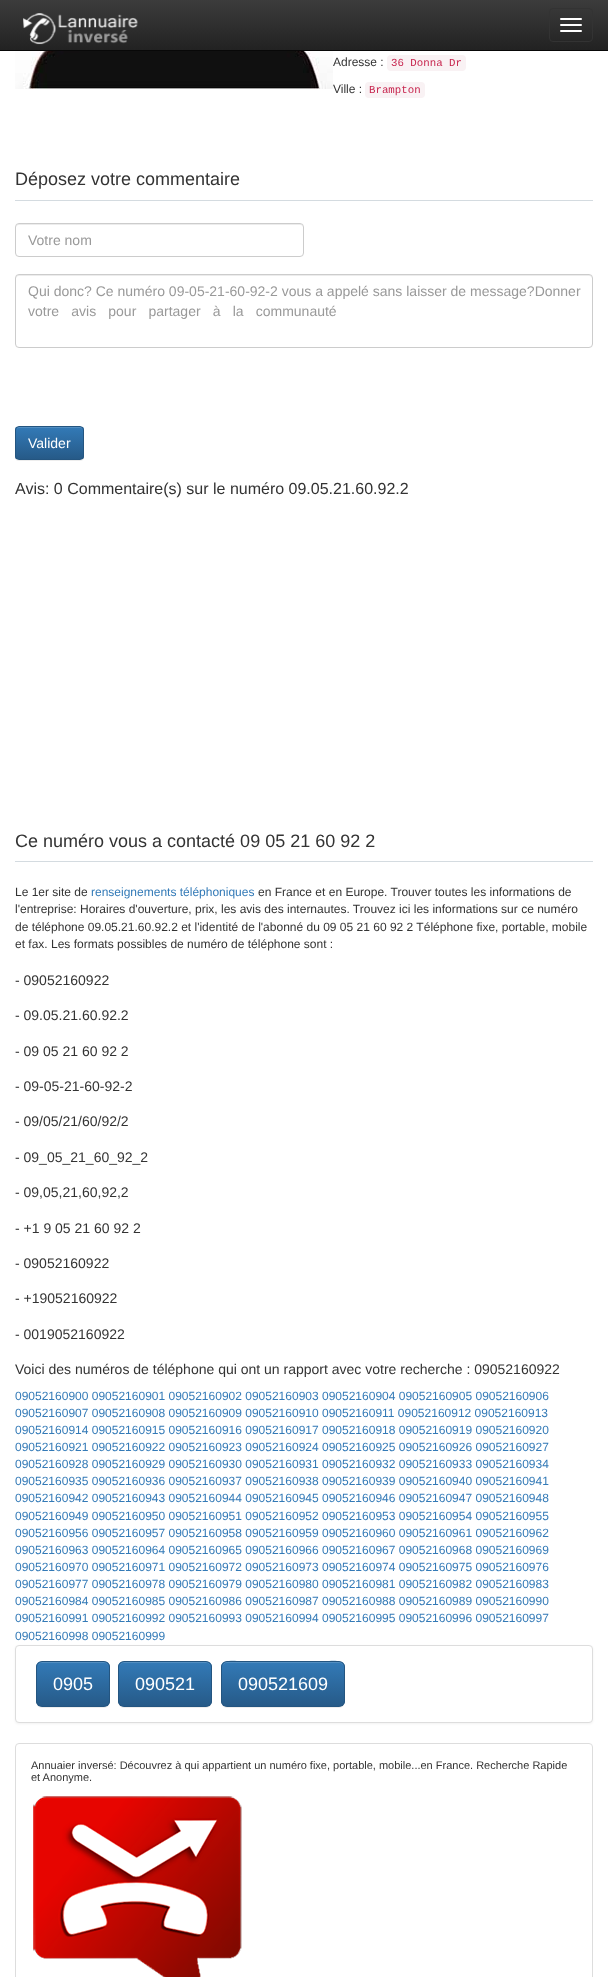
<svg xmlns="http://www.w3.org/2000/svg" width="608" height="1977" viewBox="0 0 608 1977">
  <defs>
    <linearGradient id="g1" gradientUnits="userSpaceOnUse" x1="304" y1="0" x2="304" y2="50"><stop offset="0" stop-color="#3c3c3c"/><stop offset="1" stop-color="#222222"/></linearGradient>
    <filter id="blur1" x="-50%" y="-200%" width="200%" height="500%"><feGaussianBlur stdDeviation="0.5"/></filter>
    <clipPath id="clip1"><rect x="15" y="426" width="69" height="34" rx="4"/></clipPath>
    <linearGradient id="g2" gradientUnits="userSpaceOnUse" x1="50" y1="427" x2="50" y2="459"><stop offset="0" stop-color="#337ab7"/><stop offset="1" stop-color="#265a88"/></linearGradient>
    <filter id="blur2" x="-50%" y="-200%" width="200%" height="500%"><feGaussianBlur stdDeviation="1"/></filter>
    <clipPath id="clip2"><rect x="36" y="1661" width="74" height="46" rx="6"/></clipPath>
    <linearGradient id="g3" gradientUnits="userSpaceOnUse" x1="73" y1="1662" x2="73" y2="1706"><stop offset="0" stop-color="#337ab7"/><stop offset="1" stop-color="#265a88"/></linearGradient>
    <clipPath id="clip3"><rect x="118" y="1661" width="94" height="46" rx="6"/></clipPath>
    <linearGradient id="g4" gradientUnits="userSpaceOnUse" x1="165" y1="1662" x2="165" y2="1706"><stop offset="0" stop-color="#337ab7"/><stop offset="1" stop-color="#265a88"/></linearGradient>
    <clipPath id="clip4"><rect x="221" y="1661" width="124" height="46" rx="6"/></clipPath>
    <linearGradient id="g5" gradientUnits="userSpaceOnUse" x1="283" y1="1662" x2="283" y2="1706"><stop offset="0" stop-color="#337ab7"/><stop offset="1" stop-color="#265a88"/></linearGradient>
  </defs>
  <rect width="100%" height="100%" fill="#ffffff"/>
  <rect x="0" y="0" width="608" height="50" fill="url(#g1)"/>
  <rect x="0" y="50" width="608" height="1" fill="#080808"/>
  <image x="23" y="13" width="115" height="32" href="img1.png"/>
  <rect x="549.5" y="8.5" width="43" height="33" rx="3.5" fill="none" stroke="#333333"/>
  <rect x="560" y="18" width="22" height="2" rx="1" fill="#ffffff"/>
  <rect x="560" y="24" width="22" height="2" rx="1" fill="#ffffff"/>
  <rect x="560" y="30" width="22" height="2" rx="1" fill="#ffffff"/>
  <image x="15" y="51" width="318" height="38" href="img2.png"/>
  <text x="333" y="66" font-family="Liberation Sans" font-size="12" fill="#333333">Adresse :</text>
  <rect x="387" y="55" width="79" height="16" rx="4" fill="#f9f2f4"/>
  <text x="391" y="66" font-family="Liberation Mono" font-size="10.75" fill="#c7254e">36 Donna Dr</text>
  <text x="333" y="93" font-family="Liberation Sans" font-size="12" fill="#333333">Ville :</text>
  <rect x="365" y="82" width="60" height="16" rx="4" fill="#f9f2f4"/>
  <text x="369" y="93" font-family="Liberation Mono" font-size="10.75" fill="#c7254e">Brampton</text>
  <rect x="15" y="200" width="578" height="1" fill="#d4dbe0"/>
  <text x="15" y="185" font-family="Liberation Sans" font-size="18" fill="#333333">Déposez votre commentaire</text>
  <path d="M19 225H300C302 225 303 226 303 228C303 226 302 224 300 224H19C17 224 16 226 16 228C16 226 17 225 19 225Z" fill="#ececec"/>
  <rect x="15.5" y="223.5" width="288" height="33" rx="3.5" fill="none" stroke="#cccccc"/>
  <text x="28" y="245" font-family="Liberation Sans" font-size="14" fill="#999999">Votre nom</text>
  <path d="M19 276H589C591 276 592 277 592 279V278C592 276 591 275 589 275H19C17 275 16 276 16 278V279C16 277 17 276 19 276Z" fill="#ececec"/>
  <rect x="15.5" y="274.5" width="577" height="73" rx="3.5" fill="none" stroke="#cccccc"/>
  <text x="28" y="296" font-family="Liberation Sans" font-size="14" fill="#999999">Qui donc? Ce numéro 09-05-21-60-92-2 vous a appelé sans laisser de message?Donner</text>
  <text x="28" y="316" word-spacing="8.25" font-family="Liberation Sans" font-size="14" fill="#999999">votre avis pour partager à la communauté</text>
  <rect x="15" y="427" width="69" height="34" rx="4" fill="#000000" fill-opacity="0.07" filter="url(#blur1)"/>
  <g clip-path="url(#clip1)">
    <rect x="15" y="427" width="69" height="32" fill="url(#g2)"/>
  </g>
  <path d="M19 428H80C82 428 83 429 83 431C83 424 74 427 70 427H29C25 427 16 424 16 431C16 429 17 428 19 428Z" fill="#528ec1"/>
  <rect x="15.5" y="426.5" width="68" height="33" rx="3.5" fill="none" stroke="#245580"/>
  <text x="28" y="448" font-family="Liberation Sans" font-size="14" fill="#ffffff">Valider</text>
  <text x="15" y="494" font-family="Liberation Sans" font-size="16" fill="#333333">Avis: 0 Commentaire(s) sur le numéro 09.05.21.60.92.2</text>
  <rect x="15" y="861" width="578" height="1" fill="#d4dbe0"/>
  <text x="15" y="847" font-family="Liberation Sans" font-size="18" fill="#333333">Ce numéro vous a contacté 09 05 21 60 92 2</text>
  <text x="15" y="896" font-family="Liberation Sans" font-size="12" fill="#333333">Le 1er site de</text>
  <text x="91" y="896" font-family="Liberation Sans" font-size="12" fill="#337ab7">renseignements téléphoniques</text>
  <text x="258" y="896" font-family="Liberation Sans" font-size="12" fill="#333333">en France et en Europe. Trouver toutes les informations de</text>
  <text x="15" y="913" font-family="Liberation Sans" font-size="12" fill="#333333">l'entreprise: Horaires d'ouverture, prix, les avis des internautes. Trouvez ici les informations sur ce numéro</text>
  <text x="15" y="931" font-family="Liberation Sans" font-size="12" fill="#333333">de téléphone 09.05.21.60.92.2 et l'identité de l'abonné du 09 05 21 60 92 2 Téléphone fixe, portable, mobile</text>
  <text x="15" y="948" font-family="Liberation Sans" font-size="12" fill="#333333">et fax. Les formats possibles de numéro de téléphone sont :</text>
  <text x="15" y="985" font-family="Liberation Sans" font-size="14" fill="#333333">- 09052160922</text>
  <text x="15" y="1020" font-family="Liberation Sans" font-size="14" fill="#333333">- 09.05.21.60.92.2</text>
  <text x="15" y="1056" font-family="Liberation Sans" font-size="14" fill="#333333">- 09 05 21 60 92 2</text>
  <text x="15" y="1091" font-family="Liberation Sans" font-size="14" fill="#333333">- 09-05-21-60-92-2</text>
  <text x="15" y="1126" font-family="Liberation Sans" font-size="14" fill="#333333">- 09/05/21/60/92/2</text>
  <text x="15" y="1162" font-family="Liberation Sans" font-size="14" fill="#333333">- 09_05_21_60_92_2</text>
  <text x="15" y="1197" font-family="Liberation Sans" font-size="14" fill="#333333">- 09,05,21,60,92,2</text>
  <text x="15" y="1233" font-family="Liberation Sans" font-size="14" fill="#333333">- +1 9 05 21 60 92 2</text>
  <text x="15" y="1268" font-family="Liberation Sans" font-size="14" fill="#333333">- 09052160922</text>
  <text x="15" y="1303" font-family="Liberation Sans" font-size="14" fill="#333333">- +19052160922</text>
  <text x="15" y="1339" font-family="Liberation Sans" font-size="14" fill="#333333">- 0019052160922</text>
  <text x="15" y="1374" font-family="Liberation Sans" font-size="14" fill="#333333">Voici des numéros de téléphone qui ont un rapport avec votre recherche : 09052160922</text>
  <text x="15" y="1400" font-family="Liberation Sans" font-size="12" fill="#337ab7">09052160900 09052160901 09052160902 09052160903 09052160904 09052160905 09052160906</text>
  <text x="15" y="1417" font-family="Liberation Sans" font-size="12" fill="#337ab7">09052160907 09052160908 09052160909 09052160910 09052160911 09052160912 09052160913</text>
  <text x="15" y="1434" font-family="Liberation Sans" font-size="12" fill="#337ab7">09052160914 09052160915 09052160916 09052160917 09052160918 09052160919 09052160920</text>
  <text x="15" y="1451" font-family="Liberation Sans" font-size="12" fill="#337ab7">09052160921 09052160922 09052160923 09052160924 09052160925 09052160926 09052160927</text>
  <text x="15" y="1468" font-family="Liberation Sans" font-size="12" fill="#337ab7">09052160928 09052160929 09052160930 09052160931 09052160932 09052160933 09052160934</text>
  <text x="15" y="1485" font-family="Liberation Sans" font-size="12" fill="#337ab7">09052160935 09052160936 09052160937 09052160938 09052160939 09052160940 09052160941</text>
  <text x="15" y="1502" font-family="Liberation Sans" font-size="12" fill="#337ab7">09052160942 09052160943 09052160944 09052160945 09052160946 09052160947 09052160948</text>
  <text x="15" y="1520" font-family="Liberation Sans" font-size="12" fill="#337ab7">09052160949 09052160950 09052160951 09052160952 09052160953 09052160954 09052160955</text>
  <text x="15" y="1537" font-family="Liberation Sans" font-size="12" fill="#337ab7">09052160956 09052160957 09052160958 09052160959 09052160960 09052160961 09052160962</text>
  <text x="15" y="1554" font-family="Liberation Sans" font-size="12" fill="#337ab7">09052160963 09052160964 09052160965 09052160966 09052160967 09052160968 09052160969</text>
  <text x="15" y="1571" font-family="Liberation Sans" font-size="12" fill="#337ab7">09052160970 09052160971 09052160972 09052160973 09052160974 09052160975 09052160976</text>
  <text x="15" y="1588" font-family="Liberation Sans" font-size="12" fill="#337ab7">09052160977 09052160978 09052160979 09052160980 09052160981 09052160982 09052160983</text>
  <text x="15" y="1605" font-family="Liberation Sans" font-size="12" fill="#337ab7">09052160984 09052160985 09052160986 09052160987 09052160988 09052160989 09052160990</text>
  <text x="15" y="1622" font-family="Liberation Sans" font-size="12" fill="#337ab7">09052160991 09052160992 09052160993 09052160994 09052160995 09052160996 09052160997</text>
  <text x="15" y="1640" font-family="Liberation Sans" font-size="12" fill="#337ab7">09052160998 09052160999</text>
  <rect x="15" y="1646" width="578" height="78" rx="4" fill="#000000" fill-opacity="0.05" filter="url(#blur2)"/>
  <rect x="15.5" y="1645.5" width="577" height="77" rx="3.5" fill="#ffffff" stroke="#dddddd"/>
  <rect x="36" y="1662" width="74" height="46" rx="6" fill="#000000" fill-opacity="0.07" filter="url(#blur1)"/>
  <g clip-path="url(#clip2)">
    <rect x="36" y="1662" width="74" height="44" fill="url(#g3)"/>
  </g>
  <path d="M42 1663H104C107 1663 109 1665 109 1668C109 1660 99 1662 94 1662H52C47 1662 37 1660 37 1668C37 1665 39 1663 42 1663Z" fill="#528ec1"/>
  <rect x="36.5" y="1661.5" width="73" height="45" rx="5.5" fill="none" stroke="#245580"/>
  <text x="53" y="1690" font-family="Liberation Sans" font-size="18" fill="#ffffff">0905</text>
  <rect x="118" y="1662" width="94" height="46" rx="6" fill="#000000" fill-opacity="0.07" filter="url(#blur1)"/>
  <g clip-path="url(#clip3)">
    <rect x="118" y="1662" width="94" height="44" fill="url(#g4)"/>
  </g>
  <path d="M124 1663H206C209 1663 211 1665 211 1668C211 1659 198 1662 192 1662H138C132 1662 119 1659 119 1668C119 1665 121 1663 124 1663Z" fill="#528ec1"/>
  <rect x="118.5" y="1661.5" width="93" height="45" rx="5.5" fill="none" stroke="#245580"/>
  <text x="135" y="1690" font-family="Liberation Sans" font-size="18" fill="#ffffff">090521</text>
  <rect x="221" y="1662" width="124" height="46" rx="6" fill="#000000" fill-opacity="0.07" filter="url(#blur1)"/>
  <g clip-path="url(#clip4)">
    <rect x="221" y="1662" width="124" height="44" fill="url(#g5)"/>
  </g>
  <path d="M227 1663H339C342 1663 344 1665 344 1668C344 1657 325 1662 320 1662H246C241 1662 222 1657 222 1668C222 1665 224 1663 227 1663Z" fill="#528ec1"/>
  <rect x="221.5" y="1661.5" width="123" height="45" rx="5.5" fill="none" stroke="#245580"/>
  <text x="238" y="1690" font-family="Liberation Sans" font-size="18" fill="#ffffff">090521609</text>
  <rect x="15.5" y="1743.5" width="577" height="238" rx="3.5" fill="none" stroke="#dddddd"/>
  <text x="31" y="1769" font-family="Liberation Sans" font-size="11" fill="#333333">Annuaier inversé: Découvrez à qui appartient un numéro fixe, portable, mobile...en France. Recherche Rapide</text>
  <text x="31" y="1781" font-family="Liberation Sans" font-size="11" fill="#333333">et Anonyme.</text>
  <image x="33" y="1796" width="209" height="181" href="img3.png"/>
</svg>
